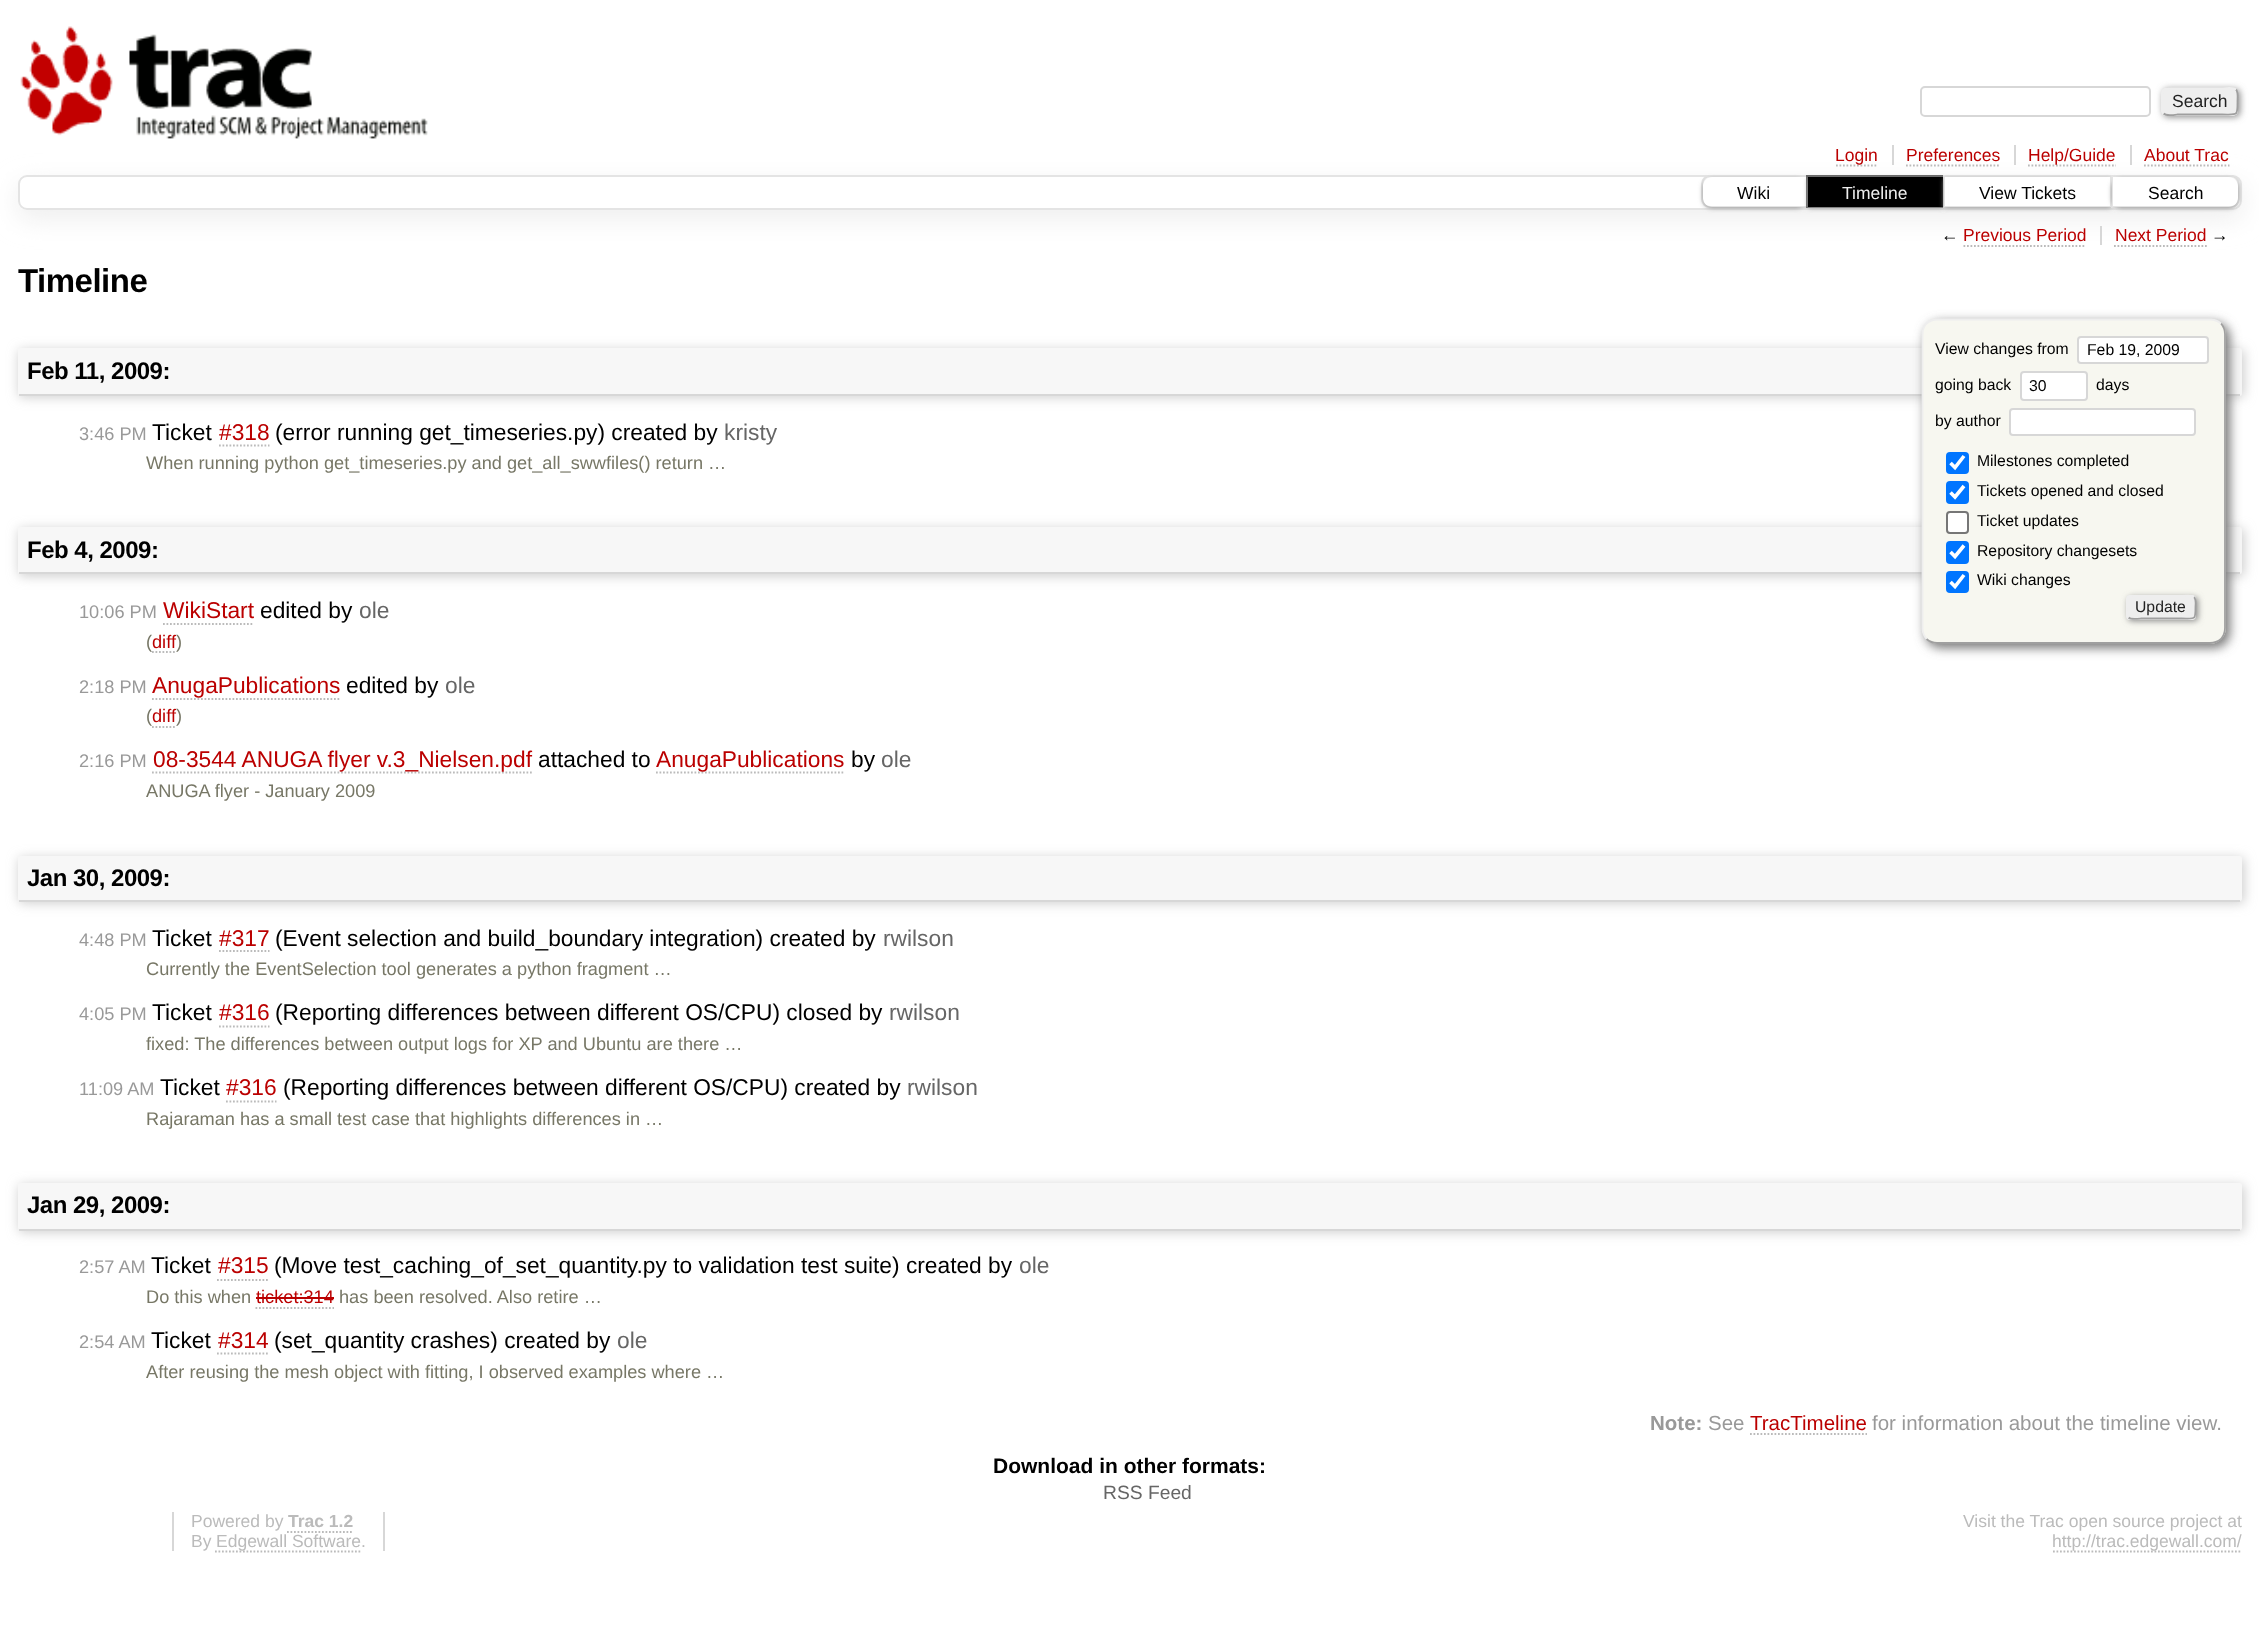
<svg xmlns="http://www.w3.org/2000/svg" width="2259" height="1633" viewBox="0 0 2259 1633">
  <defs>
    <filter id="blur1" x="-50%" y="-200%" width="200%" height="500%"><feGaussianBlur stdDeviation="3.5"/></filter>
    <clipPath id="clip1"><path d="M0 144H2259V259H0ZM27 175H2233C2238 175 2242 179 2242 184V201C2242 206 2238 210 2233 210H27C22 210 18 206 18 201V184C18 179 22 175 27 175Z" clip-rule="evenodd"/></clipPath>
    <filter id="blur2" x="-50%" y="-200%" width="200%" height="500%"><feGaussianBlur stdDeviation="13"/></filter>
    <clipPath id="clip2"><path d="M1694 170H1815V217H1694ZM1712 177H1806V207H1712C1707 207 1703 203 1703 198V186C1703 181 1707 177 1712 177Z" clip-rule="evenodd"/></clipPath>
    <filter id="blur3" x="-50%" y="-200%" width="200%" height="500%"><feGaussianBlur stdDeviation="2.5"/></filter>
    <clipPath id="clip3"><path d="M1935 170H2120V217H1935ZM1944 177H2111V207H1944Z" clip-rule="evenodd"/></clipPath>
    <clipPath id="clip4"><path d="M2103 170H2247V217H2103ZM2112 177H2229C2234 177 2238 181 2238 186V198C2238 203 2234 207 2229 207H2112Z" clip-rule="evenodd"/></clipPath>
    <filter id="blur4" x="-50%" y="-200%" width="200%" height="500%"><feGaussianBlur stdDeviation="6"/></filter>
    <filter id="blur5" x="-50%" y="-200%" width="200%" height="500%"><feGaussianBlur stdDeviation="5.5"/></filter>
    <filter id="blur6" x="-50%" y="-200%" width="200%" height="500%"><feGaussianBlur stdDeviation="3"/></filter>
  </defs>
  <rect width="100%" height="100%" fill="#ffffff"/>
  <image x="20" y="26" width="408" height="113" href="img1.png"/>
  <rect x="1921" y="87" width="229" height="29" rx="4" fill="none" stroke="#d7d7d7" stroke-width="2"/>
  <rect x="2163" y="89" width="77" height="28" rx="5" fill="#888888" filter="url(#blur1)"/>
  <rect x="2161" y="88" width="77" height="28" rx="5" fill="#eeeeee"/>
  <path d="M2236 89.5C2238.5 92 2237.5 98.5 2237.5 101.5C2237.5 116.5 2238 114.5 2222 114.5H2177.5C2177 114.5 2166.5 116.5 2163.5 113.5" fill="none" stroke="#9f9f9f" stroke-width="1.8"/>
  <path d="M2163.5 113.5C2161 111 2162 104.5 2162 101.5C2162 86.5 2161.5 88.5 2177.5 88.5H2222C2222.5 88.5 2233 86.5 2236 89.5" fill="none" stroke="#eeeeee" stroke-width="1.8"/>
  <text x="2172" y="107" font-family="Liberation Sans" font-size="17.5" fill="#222222">Search</text>
  <g clip-path="url(#clip1)">
    <rect x="18" y="184" width="2224" height="35" rx="9" fill="#eeeeee" filter="url(#blur2)"/>
  </g>
  <rect x="1892" y="145" width="2" height="20" fill="#d7d7d7"/>
  <path d="M1836 165.5H1878" fill="none" stroke="#bbbbbb" stroke-width="1.8" stroke-dasharray="1.75 1.75"/>
  <text x="1835" y="161" font-family="Liberation Sans" font-size="17.5" fill="#bb0000">Login</text>
  <rect x="2014" y="145" width="2" height="20" fill="#d7d7d7"/>
  <text x="1906" y="161" font-family="Liberation Sans" font-size="17.5" fill="#bb0000">Preferences</text>
  <path d="M1906 165.5H2000" fill="none" stroke="#bbbbbb" stroke-width="1.8" stroke-dasharray="1.75 1.75"/>
  <rect x="2130" y="145" width="2" height="20" fill="#d7d7d7"/>
  <path d="M2028 165.5H2116" fill="none" stroke="#bbbbbb" stroke-width="1.8" stroke-dasharray="1.75 1.75"/>
  <text x="2028" y="161" font-family="Liberation Sans" font-size="17.5" fill="#bb0000">Help/Guide</text>
  <text x="2144" y="161" font-family="Liberation Sans" font-size="17.5" fill="#bb0000">About Trac</text>
  <path d="M2144 165.5H2229.5" fill="none" stroke="#bbbbbb" stroke-width="1.8" stroke-dasharray="1.75 1.75"/>
  <rect x="19" y="176" width="2222" height="33" rx="8" fill="none" stroke="#e4e4e4" stroke-width="2"/>
  <path d="M1710 176H1807V207H1710C1705.5 207 1702 203.5 1702 199V184C1702 179.5 1705.5 176 1710 176Z" fill="#ffffff" stroke="#e4e4e4" stroke-width="2"/>
  <g clip-path="url(#clip2)">
    <rect x="1703" y="179" width="103" height="29" rx="9" fill="#999999" filter="url(#blur3)"/>
  </g>
  <text x="1737" y="199" font-family="Liberation Sans" font-size="17.5" fill="#000000">Wiki</text>
  <rect x="1807" y="176" width="136" height="31" fill="none" stroke="#666666" stroke-width="2"/>
  <rect x="1808" y="179" width="135" height="29" fill="#999999" filter="url(#blur3)"/>
  <rect x="1808" y="177" width="135" height="30" fill="#000000"/>
  <text x="1842" y="199" font-family="Liberation Sans" font-size="17.5" fill="#eeeeee">Timeline</text>
  <rect x="1945" y="177" width="3" height="29" fill="#ffffff"/>
  <rect x="1944" y="176" width="167" height="31" fill="none" stroke="#e4e4e4" stroke-width="2"/>
  <g clip-path="url(#clip3)">
    <rect x="1944" y="179" width="167" height="29" fill="#999999" filter="url(#blur3)"/>
  </g>
  <text x="1979" y="199" font-family="Liberation Sans" font-size="17.5" fill="#000000">View Tickets</text>
  <path d="M2112 176H2231C2235.5 176 2239 179.5 2239 184V199C2239 203.5 2235.5 207 2231 207H2112Z" fill="#ffffff" stroke="#e4e4e4" stroke-width="2"/>
  <g clip-path="url(#clip4)">
    <rect x="2112" y="179" width="126" height="29" rx="9" fill="#999999" filter="url(#blur3)"/>
  </g>
  <text x="2148" y="199" font-family="Liberation Sans" font-size="17.5" fill="#000000">Search</text>
  <rect x="2100" y="226" width="2" height="19" fill="#d7d7d7"/>
  <text x="1941" y="241" font-family="Liberation Sans" font-size="17.5" fill="#000000">←</text>
  <text x="1963" y="241" font-family="Liberation Sans" font-size="17.5" fill="#bb0000">Previous Period</text>
  <path d="M1963.5 246H2086" fill="none" stroke="#bbbbbb" stroke-width="1.8" stroke-dasharray="1.75 1.75"/>
  <text x="2115" y="241" font-family="Liberation Sans" font-size="17.5" fill="#bb0000">Next Period</text>
  <path d="M2114 246H2207" fill="none" stroke="#bbbbbb" stroke-width="1.8" stroke-dasharray="1.75 1.75"/>
  <text x="2211" y="241" font-family="Liberation Sans" font-size="17.5" fill="#000000">→</text>
  <text x="18" y="292" font-family="Liberation Sans" font-size="33" font-weight="bold" letter-spacing="-0.5" fill="#000000">Timeline</text>
  <rect x="19" y="350" width="2225" height="47" rx="2.5" fill="#cccccc" filter="url(#blur4)"/>
  <rect x="18" y="348" width="2224" height="48" rx="2.5" fill="#f7f7f7"/>
  <rect x="19" y="394" width="2221" height="2" fill="#d7d7d7"/>
  <text x="27" y="379" font-family="Liberation Sans" font-size="24" font-weight="bold" letter-spacing="-0.5" fill="#000000">Feb 11, 2009:</text>
  <rect x="19" y="529" width="2225" height="47" rx="2.5" fill="#cccccc" filter="url(#blur4)"/>
  <rect x="18" y="527" width="2224" height="47" rx="2.5" fill="#f7f7f7"/>
  <rect x="19" y="572" width="2221" height="2" fill="#d7d7d7"/>
  <rect x="1925" y="322" width="305" height="326" rx="16" fill="#777777" filter="url(#blur5)"/>
  <rect x="1922" y="319" width="304" height="325" rx="16" fill="#f7f7f0"/>
  <path d="M2221 323.5C2223.5 326.5 2225 330.5 2225 334V628C2225 632 2223.5 636 2221 639C2218 641.5 2214 643 2210 643H1937C1933.5 643 1929.5 641.5 1926.5 639" fill="none" stroke="#9f9f9f" stroke-width="1.8"/>
  <path d="M1926.5 639C1924 636 1922.5 632 1922.5 628V334C1922.5 330.5 1924 326.5 1926.5 323.5C1929.5 321 1933.5 319.5 1937 319.5H2210C2214 319.5 2218 321 2221 323.5" fill="none" stroke="#eeeeee" stroke-width="1.8"/>
  <text x="1935" y="354" font-family="Liberation Sans" font-size="15.75" fill="#000000">View changes from</text>
  <rect x="2078" y="337" width="130" height="26" rx="3" fill="#ffffff" stroke="#d7d7d7" stroke-width="2"/>
  <text x="2087" y="355" font-family="Liberation Sans" font-size="15.75" fill="#000000">Feb 19, 2009</text>
  <text x="1935" y="390" font-family="Liberation Sans" font-size="15.75" fill="#000000">going back</text>
  <rect x="2021" y="372" width="66" height="28" rx="3" fill="#ffffff" stroke="#d7d7d7" stroke-width="2"/>
  <text x="2029" y="391" font-family="Liberation Sans" font-size="15.75" fill="#000000">30</text>
  <text x="2096" y="390" font-family="Liberation Sans" font-size="15.75" fill="#000000">days</text>
  <text x="1935" y="426" font-family="Liberation Sans" font-size="15.75" fill="#000000">by author</text>
  <rect x="2010" y="409" width="185" height="26" rx="3" fill="#ffffff" stroke="#d7d7d7" stroke-width="2"/>
  <rect x="1946" y="452" width="23" height="22" rx="4" fill="#0075ff"/>
  <path d="M1950.5 463L1955 467.5L1964 456" fill="none" stroke="#ffffff" stroke-width="3.6"/>
  <text x="1977" y="466" font-family="Liberation Sans" font-size="15.75" fill="#000000">Milestones completed</text>
  <rect x="1946" y="481" width="23" height="23" rx="4" fill="#0075ff"/>
  <path d="M1950.5 492.5L1955 497L1964 486" fill="none" stroke="#ffffff" stroke-width="3.6"/>
  <text x="1977" y="496" font-family="Liberation Sans" font-size="15.75" fill="#000000">Tickets opened and closed</text>
  <rect x="1947" y="512" width="21" height="21" rx="3" fill="#ffffff" stroke="#767676" stroke-width="2"/>
  <text x="1977" y="526" font-family="Liberation Sans" font-size="15.75" fill="#000000">Ticket updates</text>
  <rect x="1946" y="541" width="23" height="23" rx="4" fill="#0075ff"/>
  <path d="M1950.5 552L1955 556.5L1964 545.5" fill="none" stroke="#ffffff" stroke-width="3.6"/>
  <text x="1977" y="556" font-family="Liberation Sans" font-size="15.75" fill="#000000">Repository changesets</text>
  <rect x="1946" y="571" width="23" height="22" rx="4" fill="#0075ff"/>
  <path d="M1950.5 582L1955 586.5L1964 575" fill="none" stroke="#ffffff" stroke-width="3.6"/>
  <text x="1977" y="585" font-family="Liberation Sans" font-size="15.75" fill="#000000">Wiki changes</text>
  <rect x="2128" y="597" width="70" height="24" rx="4" fill="#888888" filter="url(#blur6)"/>
  <rect x="2126" y="595" width="70" height="25" rx="4" fill="#eeeeee"/>
  <path d="M2194 597C2196.5 599.5 2195.5 604.5 2195.5 607C2195.5 620.5 2195.5 618.5 2181.5 618.5H2141C2140.5 618.5 2131 620 2128.5 617.5" fill="none" stroke="#9f9f9f" stroke-width="1.8"/>
  <path d="M2128.5 617.5C2126 615 2127 610 2127 607C2127 594 2127 596 2141 596H2181.5C2182 596 2191.5 594.5 2194 597" fill="none" stroke="#eeeeee" stroke-width="1.8"/>
  <text x="2135" y="612" font-family="Liberation Sans" font-size="15.75" fill="#222222">Update</text>
  <text x="79" y="440" font-family="Liberation Sans" font-size="18.2" fill="#999999">3:46 PM</text>
  <text x="152" y="440" font-family="Liberation Sans" font-size="22.75" fill="#000000">Ticket</text>
  <text x="219" y="440" font-family="Liberation Sans" font-size="22.75" fill="#bb0000">#318</text>
  <path d="M219 445.5H269.5" fill="none" stroke="#bbbbbb" stroke-width="1.8" stroke-dasharray="1.75 1.75"/>
  <text x="275" y="440" font-family="Liberation Sans" font-size="22.75" fill="#000000">(error running get_timeseries.py) created by</text>
  <text x="724" y="440" font-family="Liberation Sans" font-size="22.75" fill="#666666">kristy</text>
  <text x="146" y="469" font-family="Liberation Sans" font-size="18.2" fill="#777766">When running python get_timeseries.py and get_all_swwfiles() return …</text>
  <text x="27" y="558" font-family="Liberation Sans" font-size="24" font-weight="bold" letter-spacing="-0.5" fill="#000000">Feb 4, 2009:</text>
  <text x="79" y="618" font-family="Liberation Sans" font-size="18.2" fill="#999999">10:06 PM</text>
  <text x="163" y="618" font-family="Liberation Sans" font-size="22.75" fill="#bb0000">WikiStart</text>
  <path d="M163 624H254" fill="none" stroke="#bbbbbb" stroke-width="1.8" stroke-dasharray="1.75 1.75"/>
  <text x="260" y="618" font-family="Liberation Sans" font-size="22.75" fill="#000000">edited by</text>
  <text x="359" y="618" font-family="Liberation Sans" font-size="22.75" fill="#666666">ole</text>
  <text x="146" y="648" font-family="Liberation Sans" font-size="18.2" fill="#777766">(</text>
  <text x="152" y="648" font-family="Liberation Sans" font-size="18.2" fill="#bb0000">diff</text>
  <path d="M152 652H175" fill="none" stroke="#bbbbbb" stroke-width="1.8" stroke-dasharray="1.75 1.75"/>
  <text x="176" y="648" font-family="Liberation Sans" font-size="18.2" fill="#777766">)</text>
  <text x="79" y="693" font-family="Liberation Sans" font-size="18.2" fill="#999999">2:18 PM</text>
  <text x="152" y="693" font-family="Liberation Sans" font-size="22.75" fill="#bb0000">AnugaPublications</text>
  <path d="M152 699H339.5" fill="none" stroke="#bbbbbb" stroke-width="1.8" stroke-dasharray="1.75 1.75"/>
  <text x="346" y="693" font-family="Liberation Sans" font-size="22.75" fill="#000000">edited by</text>
  <text x="445" y="693" font-family="Liberation Sans" font-size="22.75" fill="#666666">ole</text>
  <text x="146" y="722" font-family="Liberation Sans" font-size="18.2" fill="#777766">(</text>
  <text x="152" y="722" font-family="Liberation Sans" font-size="18.2" fill="#bb0000">diff</text>
  <path d="M152 727H175" fill="none" stroke="#bbbbbb" stroke-width="1.8" stroke-dasharray="1.75 1.75"/>
  <text x="176" y="722" font-family="Liberation Sans" font-size="18.2" fill="#777766">)</text>
  <text x="79" y="767" font-family="Liberation Sans" font-size="18.2" fill="#999999">2:16 PM</text>
  <path d="M152 772.5H532" fill="none" stroke="#bbbbbb" stroke-width="1.8" stroke-dasharray="1.75 1.75"/>
  <text x="153" y="767" font-family="Liberation Sans" font-size="22.75" fill="#bb0000">08-3544 ANUGA flyer v.3_Nielsen.pdf</text>
  <text x="538" y="767" font-family="Liberation Sans" font-size="22.75" fill="#000000">attached to</text>
  <path d="M656 772.5H843.5" fill="none" stroke="#bbbbbb" stroke-width="1.8" stroke-dasharray="1.75 1.75"/>
  <text x="656" y="767" font-family="Liberation Sans" font-size="22.75" fill="#bb0000">AnugaPublications</text>
  <text x="851" y="767" font-family="Liberation Sans" font-size="22.75" fill="#000000">by</text>
  <text x="881" y="767" font-family="Liberation Sans" font-size="22.75" fill="#666666">ole</text>
  <text x="146" y="797" font-family="Liberation Sans" font-size="18.2" fill="#777766">ANUGA flyer - January 2009</text>
  <rect x="19" y="858" width="2225" height="45" rx="2.5" fill="#cccccc" filter="url(#blur4)"/>
  <rect x="18" y="856" width="2224" height="45" rx="2.5" fill="#f7f7f7"/>
  <rect x="19" y="900" width="2221" height="2" fill="#d7d7d7"/>
  <text x="27" y="886" font-family="Liberation Sans" font-size="24" font-weight="bold" letter-spacing="-0.5" fill="#000000">Jan 30, 2009:</text>
  <text x="79" y="946" font-family="Liberation Sans" font-size="18.2" fill="#999999">4:48 PM</text>
  <text x="152" y="946" font-family="Liberation Sans" font-size="22.75" fill="#000000">Ticket</text>
  <text x="219" y="946" font-family="Liberation Sans" font-size="22.75" fill="#bb0000">#317</text>
  <path d="M219 951H269.5" fill="none" stroke="#bbbbbb" stroke-width="1.8" stroke-dasharray="1.75 1.75"/>
  <text x="275" y="946" font-family="Liberation Sans" font-size="22.75" fill="#000000">(Event selection and build_boundary integration) created by</text>
  <text x="883" y="946" font-family="Liberation Sans" font-size="22.75" fill="#666666">rwilson</text>
  <text x="146" y="975" font-family="Liberation Sans" font-size="18.2" fill="#777766">Currently the EventSelection tool generates a python fragment …</text>
  <text x="79" y="1020" font-family="Liberation Sans" font-size="18.2" fill="#999999">4:05 PM</text>
  <text x="152" y="1020" font-family="Liberation Sans" font-size="22.75" fill="#000000">Ticket</text>
  <text x="219" y="1020" font-family="Liberation Sans" font-size="22.75" fill="#bb0000">#316</text>
  <path d="M219 1026.5H269.5" fill="none" stroke="#bbbbbb" stroke-width="1.8" stroke-dasharray="1.75 1.75"/>
  <text x="275" y="1020" font-family="Liberation Sans" font-size="22.75" fill="#000000">(Reporting differences between different OS/CPU) closed by</text>
  <text x="889" y="1020" font-family="Liberation Sans" font-size="22.75" fill="#666666">rwilson</text>
  <text x="146" y="1050" font-family="Liberation Sans" font-size="18.2" fill="#777766">fixed: The differences between output logs for XP and Ubuntu are there …</text>
  <text x="79" y="1095" font-family="Liberation Sans" font-size="18.2" fill="#999999">11:09 AM</text>
  <text x="160" y="1095" font-family="Liberation Sans" font-size="22.75" fill="#000000">Ticket</text>
  <text x="226" y="1095" font-family="Liberation Sans" font-size="22.75" fill="#bb0000">#316</text>
  <path d="M226 1101.5H276.5" fill="none" stroke="#bbbbbb" stroke-width="1.8" stroke-dasharray="1.75 1.75"/>
  <text x="283" y="1095" font-family="Liberation Sans" font-size="22.75" fill="#000000">(Reporting differences between different OS/CPU) created by</text>
  <text x="907" y="1095" font-family="Liberation Sans" font-size="22.75" fill="#666666">rwilson</text>
  <text x="146" y="1125" font-family="Liberation Sans" font-size="18.2" fill="#777766">Rajaraman has a small test case that highlights differences in …</text>
  <rect x="19" y="1185" width="2225" height="47" rx="2.5" fill="#cccccc" filter="url(#blur4)"/>
  <rect x="18" y="1183" width="2224" height="47" rx="2.5" fill="#f7f7f7"/>
  <rect x="19" y="1229" width="2221" height="2" fill="#d7d7d7"/>
  <text x="27" y="1213" font-family="Liberation Sans" font-size="24" font-weight="bold" letter-spacing="-0.5" fill="#000000">Jan 29, 2009:</text>
  <text x="79" y="1273" font-family="Liberation Sans" font-size="18.2" fill="#999999">2:57 AM</text>
  <text x="151" y="1273" font-family="Liberation Sans" font-size="22.75" fill="#000000">Ticket</text>
  <text x="218" y="1273" font-family="Liberation Sans" font-size="22.75" fill="#bb0000">#315</text>
  <path d="M217 1280H268" fill="none" stroke="#bbbbbb" stroke-width="1.8" stroke-dasharray="1.75 1.75"/>
  <text x="274" y="1273" font-family="Liberation Sans" font-size="22.75" fill="#000000">(Move test_caching_of_set_quantity.py to validation test suite) created by</text>
  <text x="1019" y="1273" font-family="Liberation Sans" font-size="22.75" fill="#666666">ole</text>
  <text x="146" y="1303" font-family="Liberation Sans" font-size="18.2" fill="#777766">Do this when</text>
  <text x="256" y="1303" font-family="Liberation Sans" font-size="18.2" fill="#bb0000">ticket:314</text>
  <path d="M255.5 1308H334" fill="none" stroke="#bbbbbb" stroke-width="1.8" stroke-dasharray="1.75 1.75"/>
  <rect x="256" y="1297" width="78" height="2" fill="#bb0000"/>
  <text x="339" y="1303" font-family="Liberation Sans" font-size="18.2" fill="#777766">has been resolved. Also retire …</text>
  <text x="79" y="1348" font-family="Liberation Sans" font-size="18.2" fill="#999999">2:54 AM</text>
  <text x="151" y="1348" font-family="Liberation Sans" font-size="22.75" fill="#000000">Ticket</text>
  <text x="218" y="1348" font-family="Liberation Sans" font-size="22.75" fill="#bb0000">#314</text>
  <path d="M217 1353.5H268" fill="none" stroke="#bbbbbb" stroke-width="1.8" stroke-dasharray="1.75 1.75"/>
  <text x="274" y="1348" font-family="Liberation Sans" font-size="22.75" fill="#000000">(set_quantity crashes) created by</text>
  <text x="617" y="1348" font-family="Liberation Sans" font-size="22.75" fill="#666666">ole</text>
  <text x="146" y="1378" font-family="Liberation Sans" font-size="18.2" fill="#777766">After reusing the mesh object with fitting, I observed examples where …</text>
  <text x="1650" y="1430" font-family="Liberation Sans" font-size="20.5" font-weight="bold" fill="#999999">Note:</text>
  <text x="1708" y="1430" font-family="Liberation Sans" font-size="20.5" fill="#999999">See</text>
  <text x="1750" y="1430" font-family="Liberation Sans" font-size="20.5" fill="#bb0000">TracTimeline</text>
  <path d="M1750 1434H1867" fill="none" stroke="#bbbbbb" stroke-width="1.8" stroke-dasharray="1.75 1.75"/>
  <text x="1872" y="1430" font-family="Liberation Sans" font-size="20.5" fill="#999999">for information about the timeline view.</text>
  <text x="993" y="1473" font-family="Liberation Sans" font-size="21" font-weight="bold" fill="#000000">Download in other formats:</text>
  <text x="1103" y="1499" font-family="Liberation Sans" font-size="19.25" fill="#666666">RSS Feed</text>
  <rect x="383" y="1512" width="2" height="39" fill="#d7d7d7"/>
  <rect x="172" y="1512" width="2" height="39" fill="#d7d7d7"/>
  <text x="191" y="1527" font-family="Liberation Sans" font-size="17.5" fill="#bbbbbb">Powered by</text>
  <text x="288" y="1527" font-family="Liberation Sans" font-size="17.5" font-weight="bold" fill="#bbbbbb">Trac 1.2</text>
  <path d="M287 1532H353.5" fill="none" stroke="#bbbbbb" stroke-width="1.8" stroke-dasharray="1.75 1.75"/>
  <text x="191" y="1547" font-family="Liberation Sans" font-size="17.5" fill="#bbbbbb">By</text>
  <path d="M215 1551.5H360.5" fill="none" stroke="#bbbbbb" stroke-width="1.8" stroke-dasharray="1.75 1.75"/>
  <text x="216" y="1547" font-family="Liberation Sans" font-size="17.5" fill="#bbbbbb">Edgewall Software.</text>
  <text x="1963" y="1527" font-family="Liberation Sans" font-size="17.5" fill="#bbbbbb">Visit the Trac open source project at</text>
  <path d="M2053 1551.5H2242" fill="none" stroke="#bbbbbb" stroke-width="1.8" stroke-dasharray="1.75 1.75"/>
  <text x="2052" y="1547" font-family="Liberation Sans" font-size="17.5" fill="#bbbbbb">http://trac.edgewall.com/</text>
</svg>
